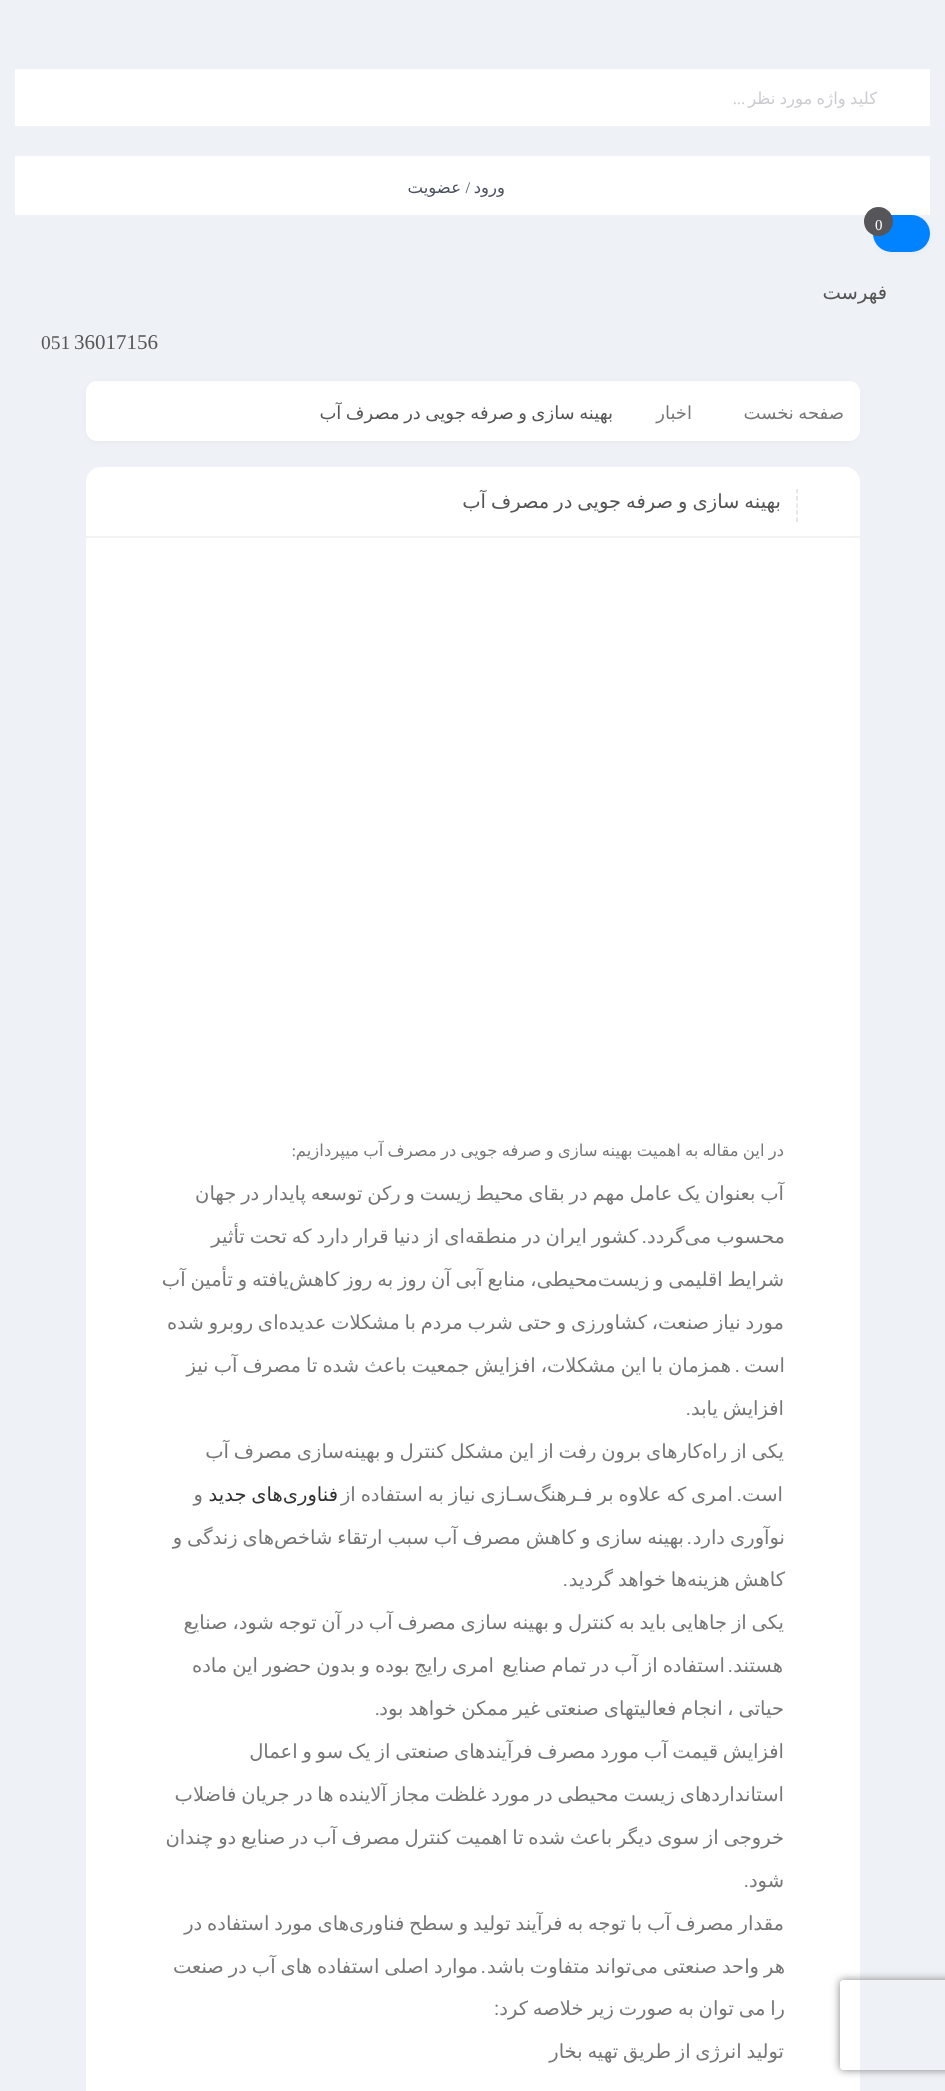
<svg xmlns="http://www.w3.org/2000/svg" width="945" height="2091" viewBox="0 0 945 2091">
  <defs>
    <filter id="blur1" x="-50%" y="-200%" width="200%" height="500%"><feGaussianBlur stdDeviation="5"/></filter>
    <clipPath id="clip1"><path d="M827 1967H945V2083H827ZM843 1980H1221C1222.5 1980 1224 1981.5 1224 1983V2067C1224 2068.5 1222.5 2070 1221 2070H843C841.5 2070 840 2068.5 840 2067V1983C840 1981.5 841.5 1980 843 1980Z" clip-rule="evenodd"/></clipPath>
    <filter id="blur2" x="-50%" y="-200%" width="200%" height="500%"><feGaussianBlur stdDeviation="4"/></filter>
  </defs>
  <rect width="100%" height="100%" fill="#eef1f6"/>
  <rect x="15" y="69" width="915" height="57" fill="#ffffff"/>
  <text x="877" y="104" word-spacing="-1" font-family="DejaVu Sans" font-size="16.5" direction="rtl" fill="#cbccd2">کلید واژه مورد نظر</text>
  <text x="745" y="104" font-family="Liberation Serif" font-size="16.5" direction="rtl" fill="#cbccd2">...</text>
  <rect x="15" y="156" width="915" height="59" fill="#ffffff"/>
  <text x="505" y="193" font-family="DejaVu Sans" font-size="16.5" direction="rtl" fill="#4a515f">ورود</text>
  <text x="470" y="193" font-family="Liberation Serif" font-size="16.5" direction="rtl" fill="#4a515f">/</text>
  <text x="461" y="193" font-family="DejaVu Sans" font-size="16.5" direction="rtl" fill="#4a515f">عضویت</text>
  <rect x="878" y="221" width="48" height="28" rx="14" fill="#000000" fill-opacity="0.1" filter="url(#blur1)"/>
  <rect x="873" y="215" width="57" height="37" rx="18.5" fill="#0183ff"/>
  <circle cx="878.5" cy="221.5" r="14.5" fill="#55555a"/>
  <text x="875" y="230" font-family="Liberation Serif" font-size="15" fill="#ffffff">0</text>
  <text x="887" y="299" font-family="DejaVu Sans" font-size="19.5" direction="rtl" fill="#555555">فهرست</text>
  <text x="74" y="349" font-family="Liberation Serif" font-size="21" fill="#555555">36017156</text>
  <text x="41" y="349" font-family="Liberation Serif" font-size="19.5" fill="#555555">051</text>
  <rect x="86" y="467" width="774" height="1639" rx="15" fill="#ffffff"/>
  <g clip-path="url(#clip1)">
    <rect x="840" y="1980" width="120" height="90" rx="3" fill="#808080" filter="url(#blur2)"/>
  </g>
  <rect x="90" y="387" width="765" height="51" rx="6" fill="#000000" fill-opacity="0.1" filter="url(#blur1)"/>
  <rect x="86" y="381" width="774" height="60" rx="11" fill="#ffffff"/>
  <text x="844" y="419" word-spacing="-1.25" font-family="DejaVu Sans" font-size="18" direction="rtl" fill="#777777">صفحه نخست</text>
  <text x="692" y="419" font-family="DejaVu Sans" font-size="18" direction="rtl" fill="#777777">اخبار</text>
  <text x="613" y="419" word-spacing="-1.25" font-family="DejaVu Sans" font-size="18" direction="rtl" fill="#555555">بهینه سازی و صرفه جویی در مصرف آب</text>
  <rect x="86" y="536" width="774" height="2" fill="#f3f2f2"/>
  <path d="M797 489V522" fill="none" stroke="#dfe0e3" stroke-width="1.5" stroke-dasharray="4.5 2.62"/>
  <text x="781" y="508" word-spacing="-1.25" font-family="DejaVu Sans" font-size="19.5" direction="rtl" fill="#555555">بهینه سازی و صرفه جویی در مصرف آب</text>
  <text x="784" y="1156" word-spacing="-1.1" font-family="DejaVu Sans" font-size="16.5" direction="rtl" fill="#777777">در این مقاله به اهمیت بهینه سازی و صرفه جویی در مصرف آب میپردازیم</text>
  <text x="296" y="1156" font-family="Liberation Serif" font-size="16.5" direction="rtl" fill="#777777">:</text>
  <text x="784" y="1200" word-spacing="-1.4" font-family="DejaVu Sans" font-size="19.5" direction="rtl" fill="#777777">آب بعنوان یک عامل مهم در بقای محیط زیست و رکن توسعه پایدار در جهان</text>
  <text x="785" y="1243" word-spacing="-1.25" font-family="DejaVu Sans" font-size="19.5" direction="rtl" fill="#777777">محسوب می‌گردد</text>
  <text x="647" y="1243" font-family="Roboto" font-size="19.5" direction="rtl" fill="#777777">.</text>
  <text x="638" y="1243" word-spacing="-1.25" font-family="DejaVu Sans" font-size="19.5" direction="rtl" fill="#777777">کشور ایران در منطقه‌ای از دنیا قرار دارد که تحت تأثیر</text>
  <text x="784" y="1286" word-spacing="-1.4" font-family="DejaVu Sans" font-size="19.5" direction="rtl" fill="#777777">شرایط اقلیمی و زیست‌محیطی، منابع آبی آن روز به روز کاهش‌یافته و تأمین آب</text>
  <text x="784" y="1329" word-spacing="-1.4" font-family="DejaVu Sans" font-size="19.5" direction="rtl" fill="#777777">مورد نیاز صنعت، کشاورزی و حتی شرب مردم با مشکلات عدیده‌ای روبرو شده</text>
  <text x="785" y="1372" font-family="DejaVu Sans" font-size="19.5" direction="rtl" fill="#777777">است</text>
  <text x="740" y="1372" font-family="Roboto" font-size="19.5" direction="rtl" fill="#777777">.</text>
  <text x="731" y="1372" word-spacing="-1.1" font-family="DejaVu Sans" font-size="19.5" direction="rtl" fill="#777777">همزمان با این مشکلات، افزایش جمعیت باعث شده تا مصرف آب نیز</text>
  <text x="784" y="1415" word-spacing="-1.4" font-family="DejaVu Sans" font-size="19.5" direction="rtl" fill="#777777">افزایش یابد</text>
  <text x="691" y="1415" font-family="Roboto" font-size="19.5" direction="rtl" fill="#777777">.</text>
  <text x="784" y="1458" word-spacing="-1.4" font-family="DejaVu Sans" font-size="19.5" direction="rtl" fill="#777777">یکی از راه‌کارهای برون رفت از این مشکل کنترل و بهینه‌سازی مصرف آب</text>
  <text x="783" y="1501" font-family="DejaVu Sans" font-size="19.5" direction="rtl" fill="#777777">است</text>
  <text x="742" y="1501" font-family="Roboto" font-size="19.5" direction="rtl" fill="#777777">.</text>
  <text x="733" y="1501" word-spacing="-1.25" font-family="DejaVu Sans" font-size="19.5" direction="rtl" fill="#777777">امری که علاوه بر فـرهنگ‌سـازی نیاز به استفاده از</text>
  <text x="338" y="1501" word-spacing="-1.4" font-family="DejaVu Sans" font-size="19.5" direction="rtl" fill="#333333">فناوری‌های جدید</text>
  <text x="203" y="1501" font-family="DejaVu Sans" font-size="19.5" direction="rtl" fill="#777777">و</text>
  <text x="785" y="1544" word-spacing="-1.25" font-family="DejaVu Sans" font-size="19.5" direction="rtl" fill="#777777">نوآوری دارد</text>
  <text x="692" y="1544" font-family="Roboto" font-size="19.5" direction="rtl" fill="#777777">.</text>
  <text x="684" y="1544" word-spacing="-1.25" font-family="DejaVu Sans" font-size="19.5" direction="rtl" fill="#777777">بهینه سازی و کاهش مصرف آب سبب ارتقاء شاخص‌های زندگی و</text>
  <text x="785" y="1586" word-spacing="-1.4" font-family="DejaVu Sans" font-size="19.5" direction="rtl" fill="#777777">کاهش هزینه‌ها خواهد گردید</text>
  <text x="568" y="1586" font-family="Roboto" font-size="19.5" direction="rtl" fill="#777777">.</text>
  <text x="784" y="1629" word-spacing="-1.4" font-family="DejaVu Sans" font-size="19.5" direction="rtl" fill="#777777">یکی از جاهایی باید به کنترل و بهینه سازی مصرف آب در آن توجه شود، صنایع</text>
  <text x="783" y="1672" font-family="DejaVu Sans" font-size="19.5" direction="rtl" fill="#777777">هستند</text>
  <text x="733" y="1672" font-family="Roboto" font-size="19.5" direction="rtl" fill="#777777">.</text>
  <text x="725" y="1672" word-spacing="-1.25" font-family="DejaVu Sans" font-size="19.5" direction="rtl" fill="#777777">استفاده از آب در تمام صنایع</text>
  <text x="494" y="1672" word-spacing="-1.25" font-family="DejaVu Sans" font-size="19.5" direction="rtl" fill="#777777">امری رایج بوده و بدون حضور این ماده</text>
  <text x="784" y="1715" word-spacing="-1.4" font-family="DejaVu Sans" font-size="19.5" direction="rtl" fill="#777777">حیاتی ، انجام فعالیتهای صنعتی غیر ممکن خواهد بود</text>
  <text x="380" y="1715" font-family="Roboto" font-size="19.5" direction="rtl" fill="#777777">.</text>
  <text x="784" y="1758" word-spacing="-1.4" font-family="DejaVu Sans" font-size="19.5" direction="rtl" fill="#777777">افزایش قیمت آب مورد مصرف فرآیندهای صنعتی از یک سو و اعمال</text>
  <text x="784" y="1801" word-spacing="-1.4" font-family="DejaVu Sans" font-size="19.5" direction="rtl" fill="#777777">استانداردهای زیست محیطی در مورد غلظت مجاز آلاینده ها در جریان فاضلاب</text>
  <text x="784" y="1844" word-spacing="-1.4" font-family="DejaVu Sans" font-size="19.5" direction="rtl" fill="#777777">خروجی از سوی دیگر باعث شده تا اهمیت کنترل مصرف آب در صنایع دو چندان</text>
  <text x="784" y="1887" font-family="DejaVu Sans" font-size="19.5" direction="rtl" fill="#777777">شود</text>
  <text x="749" y="1887" font-family="Roboto" font-size="19.5" direction="rtl" fill="#777777">.</text>
  <text x="784" y="1930" word-spacing="-1.4" font-family="DejaVu Sans" font-size="19.5" direction="rtl" fill="#777777">مقدار مصرف آب با توجه به فرآیند تولید و سطح فناوری‌های مورد استفاده در</text>
  <text x="785" y="1973" word-spacing="-1.25" font-family="DejaVu Sans" font-size="19.5" direction="rtl" fill="#777777">هر واحد صنعتی می‌تواند متفاوت باشد</text>
  <text x="486" y="1973" font-family="Roboto" font-size="19.5" direction="rtl" fill="#777777">.</text>
  <text x="478" y="1973" word-spacing="-1.25" font-family="DejaVu Sans" font-size="19.5" direction="rtl" fill="#777777">موارد اصلی استفاده های آب در صنعت</text>
  <text x="785" y="2015" word-spacing="-1.4" font-family="DejaVu Sans" font-size="19.5" direction="rtl" fill="#777777">را می توان به صورت زیر خلاصه کرد</text>
  <text x="499" y="2015" font-family="Roboto" font-size="19.5" direction="rtl" fill="#777777">:</text>
  <text x="784" y="2058" word-spacing="-1.4" font-family="DejaVu Sans" font-size="19.5" direction="rtl" fill="#777777">تولید انرژی از طریق تهیه بخار</text>
</svg>
